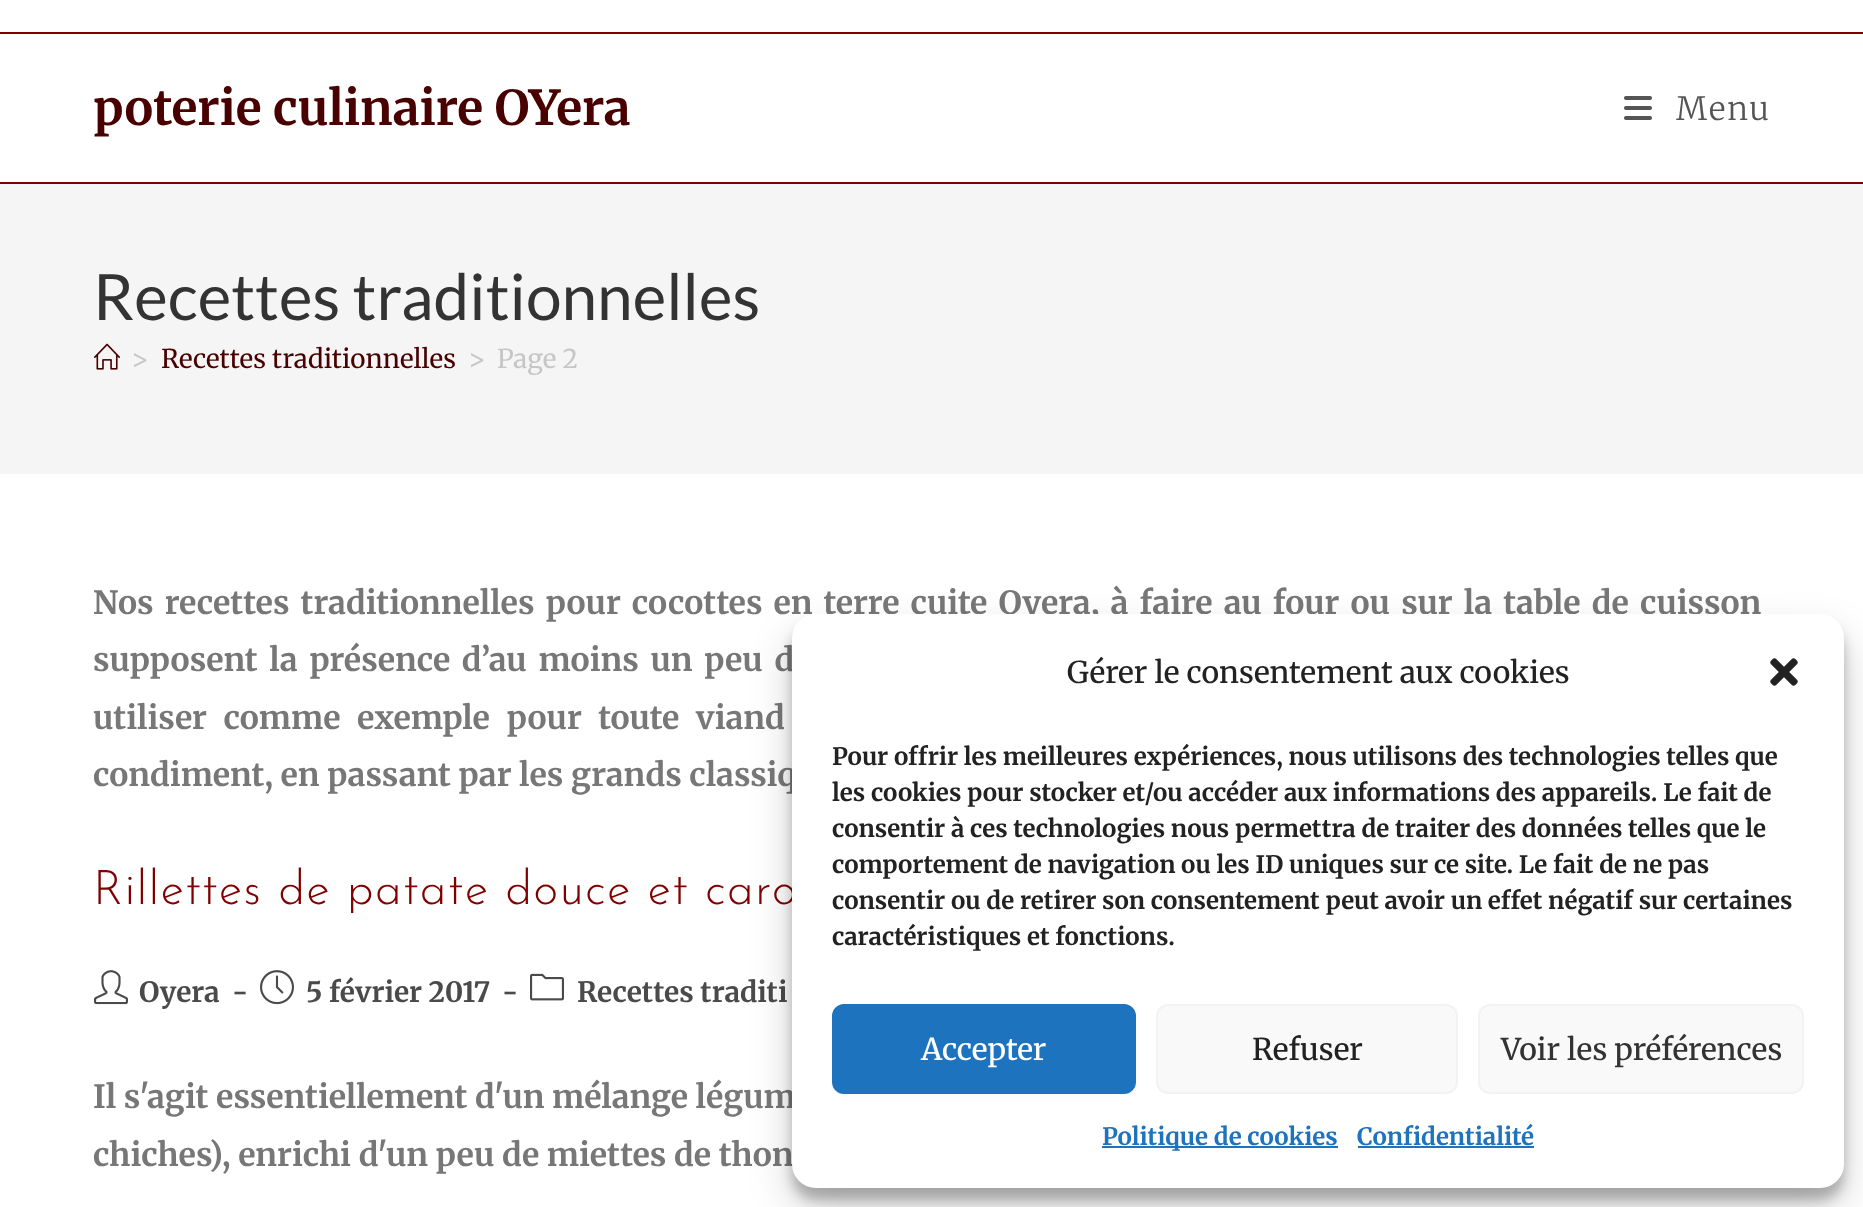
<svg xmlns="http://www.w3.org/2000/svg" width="1863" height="1207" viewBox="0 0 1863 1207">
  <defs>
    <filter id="blur1" x="-50%" y="-200%" width="200%" height="500%"><feGaussianBlur stdDeviation="6"/></filter>
    <filter id="blur2" x="-50%" y="-200%" width="200%" height="500%"><feGaussianBlur stdDeviation="20"/></filter>
  </defs>
  <rect width="100%" height="100%" fill="#ffffff"/>
  <rect x="0" y="32" width="1863" height="2" fill="#800000"/>
  <rect x="0" y="182" width="1863" height="2" fill="#800000"/>
  <text x="93" y="125" font-family="Merriweather" font-size="48" font-weight="bold" fill="#490000">poterie culinaire OYera</text>
  <image x="1624" y="96" width="28" height="24" href="img1.png"/>
  <text x="1676" y="120" font-family="Merriweather" font-size="32" font-weight="300" letter-spacing="2" fill="#555555">Menu</text>
  <rect x="0" y="184" width="1863" height="290" fill="#f5f5f5"/>
  <text x="93" y="320" font-family="Lato" font-size="64" fill="#333333">Recettes traditionnelles</text>
  <image x="94" y="343" width="26" height="27" href="img2.png"/>
  <text x="131" y="368" font-family="Merriweather" font-size="26" fill="#c6c6c6">&gt;</text>
  <text x="161" y="368" font-family="Merriweather" font-size="26" fill="#490000">Recettes traditionnelles</text>
  <text x="468" y="368" font-family="Merriweather" font-size="26" fill="#c6c6c6">&gt;</text>
  <text x="497" y="368" font-family="Merriweather" font-size="26" fill="#c6c6c6">Page 2</text>
  <text x="93" y="614" word-spacing="3.5" font-family="Merriweather" font-size="32" font-weight="bold" fill="#777777">Nos recettes traditionnelles pour cocottes en terre cuite Oyera, à faire au four ou sur la table de cuisson</text>
  <text x="93" y="671" word-spacing="4" font-family="Merriweather" font-size="32" font-weight="bold" fill="#777777">supposent la présence d’au moins un peu d</text>
  <text x="93" y="729" word-spacing="9" font-family="Merriweather" font-size="32" font-weight="bold" fill="#777777">utiliser comme exemple pour toute viand</text>
  <text x="93" y="786" font-family="Merriweather" font-size="32" font-weight="bold" fill="#777777">condiment, en passant par les grands classiq</text>
  <text x="93" y="904" font-family="Josefin Sans" font-size="48" font-weight="300" letter-spacing="1.2" fill="#800000">Rillettes de patate douce et caro</text>
  <image x="94" y="970" width="34" height="35" href="img3.png"/>
  <text x="139" y="1002" font-family="Merriweather" font-size="28" font-weight="bold" fill="#4a4a4a">Oyera</text>
  <text x="232" y="1002" font-family="Merriweather" font-size="28" font-weight="bold" fill="#4a4a4a">-</text>
  <image x="260" y="970" width="34" height="35" href="img4.png"/>
  <text x="306" y="1002" font-family="Merriweather" font-size="28" font-weight="bold" fill="#4a4a4a">5 février 2017</text>
  <text x="502" y="1002" font-family="Merriweather" font-size="28" font-weight="bold" fill="#4a4a4a">-</text>
  <image x="530" y="973" width="34" height="28" href="img5.png"/>
  <text x="577" y="1002" font-family="Merriweather" font-size="28" font-weight="bold" fill="#4a4a4a">Recettes traditi</text>
  <text x="93" y="1108" font-family="Merriweather" font-size="32" font-weight="bold" fill="#777777">Il s'agit essentiellement d'un mélange légum</text>
  <text x="93" y="1166" font-family="Merriweather" font-size="32" font-weight="bold" fill="#777777">chiches), enrichi d'un peu de miettes de thon</text>
  <rect x="792" y="626" width="1052" height="574" rx="24" fill="#000000" fill-opacity="0.23" filter="url(#blur1)"/>
  <rect x="792" y="634" width="1052" height="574" rx="24" fill="#000000" fill-opacity="0.19" filter="url(#blur2)"/>
  <rect x="792" y="614" width="1052" height="574" rx="24" fill="#ffffff"/>
  <text x="1067" y="683" font-family="Merriweather" font-size="30" font-weight="500" fill="#222222">Gérer le consentement aux cookies</text>
  <image x="1770" y="658" width="28" height="28" href="img6.png"/>
  <text x="832" y="765" font-family="Merriweather" font-size="24" font-weight="bold" fill="#222222">Pour offrir les meilleures expériences, nous utilisons des technologies telles que</text>
  <text x="832" y="801" font-family="Merriweather" font-size="24" font-weight="bold" fill="#222222">les cookies pour stocker et/ou accéder aux informations des appareils. Le fait de</text>
  <text x="832" y="837" font-family="Merriweather" font-size="24" font-weight="bold" fill="#222222">consentir à ces technologies nous permettra de traiter des données telles que le</text>
  <text x="832" y="873" font-family="Merriweather" font-size="24" font-weight="bold" fill="#222222">comportement de navigation ou les ID uniques sur ce site. Le fait de ne pas</text>
  <text x="832" y="909" font-family="Merriweather" font-size="24" font-weight="bold" fill="#222222">consentir ou de retirer son consentement peut avoir un effet négatif sur certaines</text>
  <text x="832" y="945" font-family="Merriweather" font-size="24" font-weight="bold" fill="#222222">caractéristiques et fonctions.</text>
  <rect x="833" y="1005" width="302" height="88" rx="11" fill="#1e73be" stroke="#1e73be" stroke-width="2"/>
  <text x="921" y="1060" font-family="Merriweather" font-size="30" font-weight="500" fill="#ffffff">Accepter</text>
  <rect x="1157" y="1005" width="300" height="88" rx="11" fill="#f9f9f9" stroke="#f2f2f2" stroke-width="2"/>
  <text x="1252" y="1060" font-family="Merriweather" font-size="30" font-weight="500" fill="#222222">Refuser</text>
  <rect x="1479" y="1005" width="324" height="88" rx="11" fill="#f9f9f9" stroke="#f2f2f2" stroke-width="2"/>
  <text x="1501" y="1060" font-family="Merriweather" font-size="30" font-weight="500" fill="#333333">Voir les préférences</text>
  <rect x="1102" y="1146" width="236" height="2" fill="#1e73be"/>
  <text x="1102" y="1145" font-family="Merriweather" font-size="24" font-weight="bold" fill="#1e73be">Politique de cookies</text>
  <text x="1357" y="1145" font-family="Merriweather" font-size="24" font-weight="bold" fill="#1e73be">Confidentialité</text>
  <rect x="1358" y="1146" width="176" height="2" fill="#1e73be"/>
</svg>
